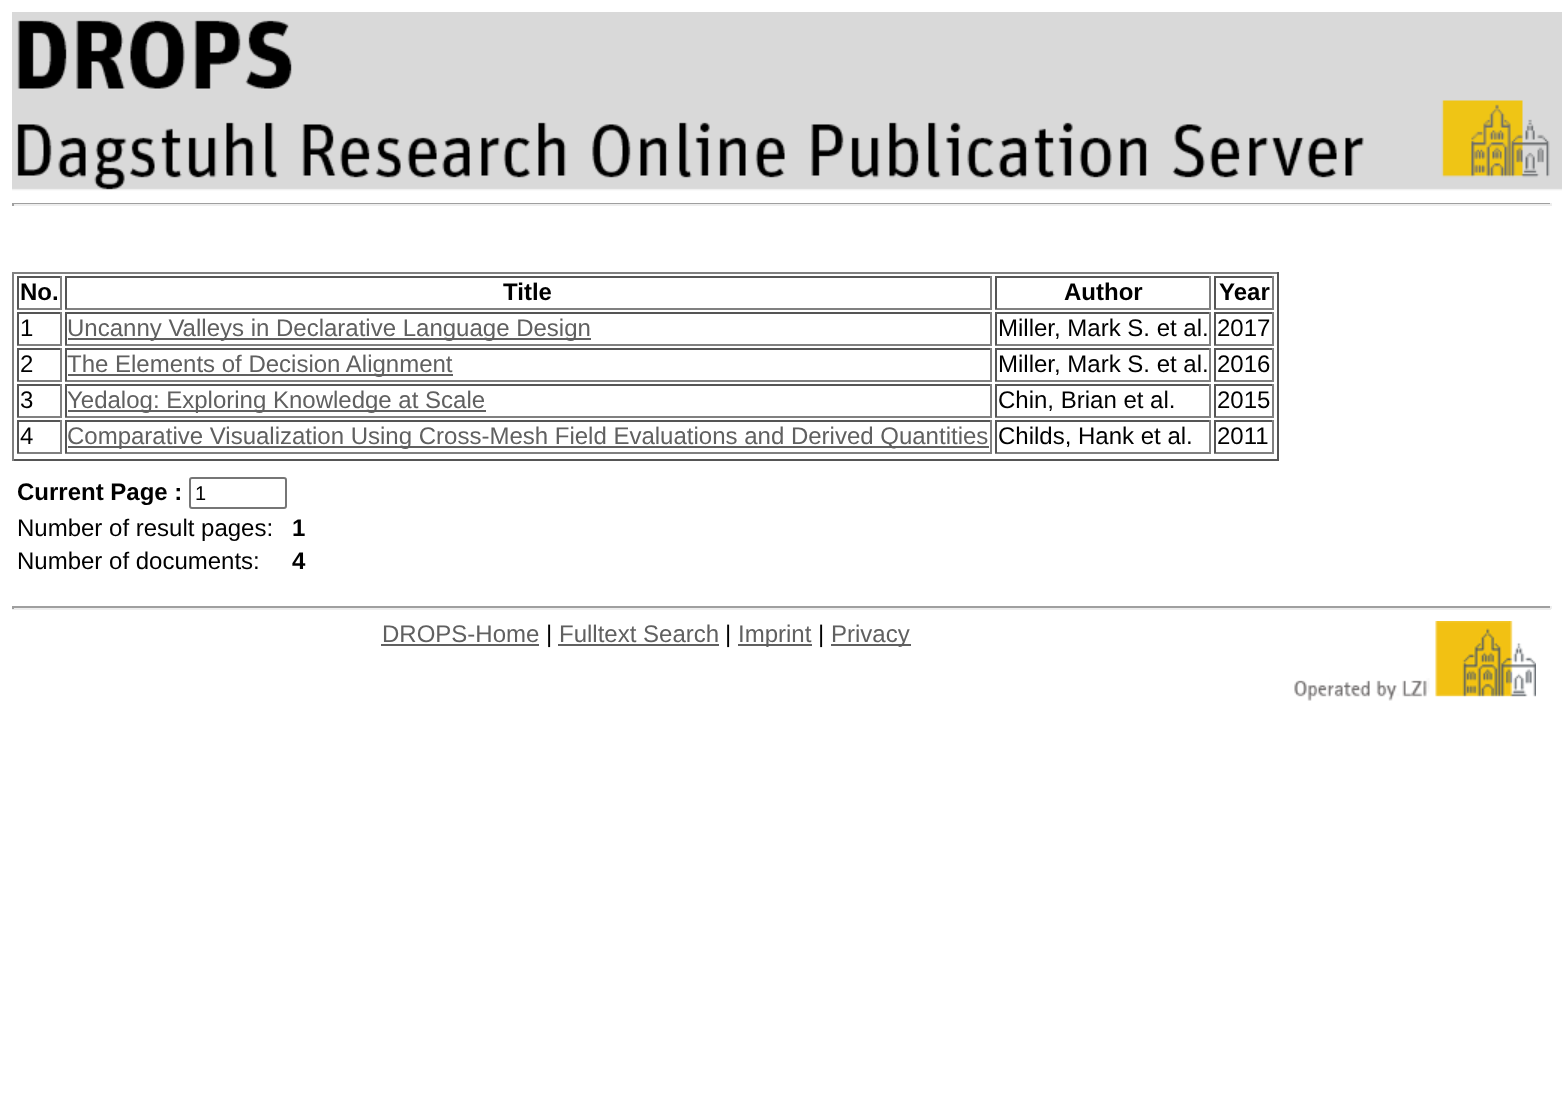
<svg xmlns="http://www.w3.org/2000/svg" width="1562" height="1094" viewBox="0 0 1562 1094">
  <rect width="100%" height="100%" fill="#ffffff"/>
  <image x="12" y="12" width="1550" height="179" href="img1.png"/>
  <rect x="12" y="203" width="1539" height="1" fill="#9f9f9f"/>
  <rect x="1550" y="203" width="2" height="3" fill="#eeeeee"/>
  <rect x="12" y="204" width="1539" height="2" fill="#eeeeee"/>
  <rect x="12" y="203" width="2" height="3" fill="#9f9f9f"/>
  <rect x="12" y="272" width="1266" height="2" fill="#808080"/>
  <rect x="1277" y="272" width="2" height="189" fill="#555555"/>
  <rect x="12" y="459" width="1266" height="2" fill="#555555"/>
  <rect x="12" y="272" width="2" height="189" fill="#808080"/>
  <rect x="17" y="276" width="45" height="2" fill="#555555"/>
  <rect x="60" y="276" width="2" height="33" fill="#808080"/>
  <rect x="17" y="308" width="45" height="2" fill="#808080"/>
  <rect x="17" y="276" width="2" height="33" fill="#555555"/>
  <text x="20" y="300" font-family="Liberation Sans" font-size="24" font-weight="bold" fill="#000000">No.</text>
  <rect x="65" y="276" width="927" height="2" fill="#555555"/>
  <rect x="990" y="276" width="2" height="33" fill="#808080"/>
  <rect x="65" y="308" width="927" height="2" fill="#808080"/>
  <rect x="65" y="276" width="2" height="33" fill="#555555"/>
  <text x="503" y="300" font-family="Liberation Sans" font-size="24" font-weight="bold" fill="#000000">Title</text>
  <rect x="995" y="276" width="216" height="2" fill="#555555"/>
  <rect x="1209" y="276" width="2" height="33" fill="#808080"/>
  <rect x="995" y="308" width="216" height="2" fill="#808080"/>
  <rect x="995" y="276" width="2" height="33" fill="#555555"/>
  <text x="1064" y="300" font-family="Liberation Sans" font-size="24" font-weight="bold" fill="#000000">Author</text>
  <rect x="1214" y="276" width="60" height="2" fill="#555555"/>
  <rect x="1272" y="276" width="2" height="33" fill="#808080"/>
  <rect x="1214" y="308" width="60" height="2" fill="#808080"/>
  <rect x="1214" y="276" width="2" height="33" fill="#555555"/>
  <text x="1219" y="300" font-family="Liberation Sans" font-size="24" font-weight="bold" fill="#000000">Year</text>
  <rect x="17" y="312" width="45" height="2" fill="#555555"/>
  <rect x="60" y="312" width="2" height="33" fill="#808080"/>
  <rect x="17" y="344" width="45" height="2" fill="#808080"/>
  <rect x="17" y="312" width="2" height="33" fill="#555555"/>
  <text x="20" y="336" font-family="Liberation Sans" font-size="24" fill="#000000">1</text>
  <rect x="65" y="312" width="927" height="2" fill="#555555"/>
  <rect x="990" y="312" width="2" height="33" fill="#808080"/>
  <rect x="65" y="344" width="927" height="2" fill="#808080"/>
  <rect x="65" y="312" width="2" height="33" fill="#555555"/>
  <rect x="68" y="338" width="523" height="2" fill="#606060"/>
  <text x="67" y="336" font-family="Liberation Sans" font-size="24" fill="#606060">Uncanny Valleys in Declarative Language Design</text>
  <rect x="995" y="312" width="216" height="2" fill="#555555"/>
  <rect x="1209" y="312" width="2" height="33" fill="#808080"/>
  <rect x="995" y="344" width="216" height="2" fill="#808080"/>
  <rect x="995" y="312" width="2" height="33" fill="#555555"/>
  <text x="998" y="336" font-family="Liberation Sans" font-size="24" fill="#000000">Miller, Mark S. et al.</text>
  <rect x="1214" y="312" width="60" height="2" fill="#555555"/>
  <rect x="1272" y="312" width="2" height="33" fill="#808080"/>
  <rect x="1214" y="344" width="60" height="2" fill="#808080"/>
  <rect x="1214" y="312" width="2" height="33" fill="#555555"/>
  <text x="1217" y="336" font-family="Liberation Sans" font-size="24" fill="#000000">2017</text>
  <rect x="17" y="348" width="45" height="2" fill="#555555"/>
  <rect x="60" y="348" width="2" height="33" fill="#808080"/>
  <rect x="17" y="380" width="45" height="2" fill="#808080"/>
  <rect x="17" y="348" width="2" height="33" fill="#555555"/>
  <text x="20" y="372" font-family="Liberation Sans" font-size="24" fill="#000000">2</text>
  <rect x="65" y="348" width="927" height="2" fill="#555555"/>
  <rect x="990" y="348" width="2" height="33" fill="#808080"/>
  <rect x="65" y="380" width="927" height="2" fill="#808080"/>
  <rect x="65" y="348" width="2" height="33" fill="#555555"/>
  <rect x="68" y="374" width="385" height="2" fill="#606060"/>
  <text x="67" y="372" font-family="Liberation Sans" font-size="24" fill="#606060">The Elements of Decision Alignment</text>
  <rect x="995" y="348" width="216" height="2" fill="#555555"/>
  <rect x="1209" y="348" width="2" height="33" fill="#808080"/>
  <rect x="995" y="380" width="216" height="2" fill="#808080"/>
  <rect x="995" y="348" width="2" height="33" fill="#555555"/>
  <text x="998" y="372" font-family="Liberation Sans" font-size="24" fill="#000000">Miller, Mark S. et al.</text>
  <rect x="1214" y="348" width="60" height="2" fill="#555555"/>
  <rect x="1272" y="348" width="2" height="33" fill="#808080"/>
  <rect x="1214" y="380" width="60" height="2" fill="#808080"/>
  <rect x="1214" y="348" width="2" height="33" fill="#555555"/>
  <text x="1217" y="372" font-family="Liberation Sans" font-size="24" fill="#000000">2016</text>
  <rect x="17" y="384" width="45" height="2" fill="#555555"/>
  <rect x="60" y="384" width="2" height="33" fill="#808080"/>
  <rect x="17" y="416" width="45" height="2" fill="#808080"/>
  <rect x="17" y="384" width="2" height="33" fill="#555555"/>
  <text x="20" y="408" font-family="Liberation Sans" font-size="24" fill="#000000">3</text>
  <rect x="65" y="384" width="927" height="2" fill="#555555"/>
  <rect x="990" y="384" width="2" height="33" fill="#808080"/>
  <rect x="65" y="416" width="927" height="2" fill="#808080"/>
  <rect x="65" y="384" width="2" height="33" fill="#555555"/>
  <rect x="68" y="410" width="418" height="2" fill="#606060"/>
  <text x="67" y="408" font-family="Liberation Sans" font-size="24" fill="#606060">Yedalog: Exploring Knowledge at Scale</text>
  <rect x="995" y="384" width="216" height="2" fill="#555555"/>
  <rect x="1209" y="384" width="2" height="33" fill="#808080"/>
  <rect x="995" y="416" width="216" height="2" fill="#808080"/>
  <rect x="995" y="384" width="2" height="33" fill="#555555"/>
  <text x="998" y="408" font-family="Liberation Sans" font-size="24" fill="#000000">Chin, Brian et al.</text>
  <rect x="1214" y="384" width="60" height="2" fill="#555555"/>
  <rect x="1272" y="384" width="2" height="33" fill="#808080"/>
  <rect x="1214" y="416" width="60" height="2" fill="#808080"/>
  <rect x="1214" y="384" width="2" height="33" fill="#555555"/>
  <text x="1217" y="408" font-family="Liberation Sans" font-size="24" fill="#000000">2015</text>
  <rect x="17" y="420" width="45" height="2" fill="#555555"/>
  <rect x="60" y="420" width="2" height="33" fill="#808080"/>
  <rect x="17" y="452" width="45" height="2" fill="#808080"/>
  <rect x="17" y="420" width="2" height="33" fill="#555555"/>
  <text x="20" y="444" font-family="Liberation Sans" font-size="24" fill="#000000">4</text>
  <rect x="65" y="420" width="927" height="2" fill="#555555"/>
  <rect x="990" y="420" width="2" height="33" fill="#808080"/>
  <rect x="65" y="452" width="927" height="2" fill="#808080"/>
  <rect x="65" y="420" width="2" height="33" fill="#555555"/>
  <rect x="68" y="446" width="921" height="2" fill="#606060"/>
  <text x="67" y="444" font-family="Liberation Sans" font-size="24" fill="#606060">Comparative Visualization Using Cross-Mesh Field Evaluations and Derived Quantities</text>
  <rect x="995" y="420" width="216" height="2" fill="#555555"/>
  <rect x="1209" y="420" width="2" height="33" fill="#808080"/>
  <rect x="995" y="452" width="216" height="2" fill="#808080"/>
  <rect x="995" y="420" width="2" height="33" fill="#555555"/>
  <text x="998" y="444" font-family="Liberation Sans" font-size="24" fill="#000000">Childs, Hank et al.</text>
  <rect x="1214" y="420" width="60" height="2" fill="#555555"/>
  <rect x="1272" y="420" width="2" height="33" fill="#808080"/>
  <rect x="1214" y="452" width="60" height="2" fill="#808080"/>
  <rect x="1214" y="420" width="2" height="33" fill="#555555"/>
  <text x="1217" y="444" font-family="Liberation Sans" font-size="24" fill="#000000">2011</text>
  <text x="17" y="500" font-family="Liberation Sans" font-size="24" font-weight="bold" fill="#000000">Current Page :</text>
  <rect x="190" y="478" width="96" height="30" rx="2" fill="none" stroke="#767676" stroke-width="2"/>
  <text x="195" y="500" font-family="Liberation Sans" font-size="20" fill="#000000">1</text>
  <text x="17" y="536" font-family="Liberation Sans" font-size="24" fill="#000000">Number of result pages:</text>
  <text x="292" y="536" font-family="Liberation Sans" font-size="24" font-weight="bold" fill="#000000">1</text>
  <text x="17" y="569" font-family="Liberation Sans" font-size="24" fill="#000000">Number of documents:</text>
  <text x="292" y="569" font-family="Liberation Sans" font-size="24" font-weight="bold" fill="#000000">4</text>
  <rect x="12" y="606" width="1539" height="2" fill="#9f9f9f"/>
  <rect x="1550" y="606" width="2" height="3" fill="#eeeeee"/>
  <rect x="12" y="608" width="1539" height="2" fill="#eeeeee"/>
  <rect x="12" y="606" width="2" height="3" fill="#9f9f9f"/>
  <text x="382" y="642" font-family="Liberation Sans" font-size="24" fill="#606060">DROPS-Home</text>
  <rect x="381" y="644" width="158" height="2" fill="#606060"/>
  <text x="546" y="642" font-family="Liberation Sans" font-size="24" fill="#000000">|</text>
  <text x="559" y="642" font-family="Liberation Sans" font-size="24" fill="#606060">Fulltext Search</text>
  <rect x="558" y="644" width="161" height="2" fill="#606060"/>
  <text x="725" y="642" font-family="Liberation Sans" font-size="24" fill="#000000">|</text>
  <rect x="738" y="644" width="74" height="2" fill="#606060"/>
  <text x="738" y="642" font-family="Liberation Sans" font-size="24" fill="#606060">Imprint</text>
  <text x="818" y="642" font-family="Liberation Sans" font-size="24" fill="#000000">|</text>
  <rect x="831" y="644" width="80" height="2" fill="#606060"/>
  <text x="831" y="642" font-family="Liberation Sans" font-size="24" fill="#606060">Privacy</text>
  <image x="1294" y="621" width="242" height="80" href="img2.png"/>
</svg>
